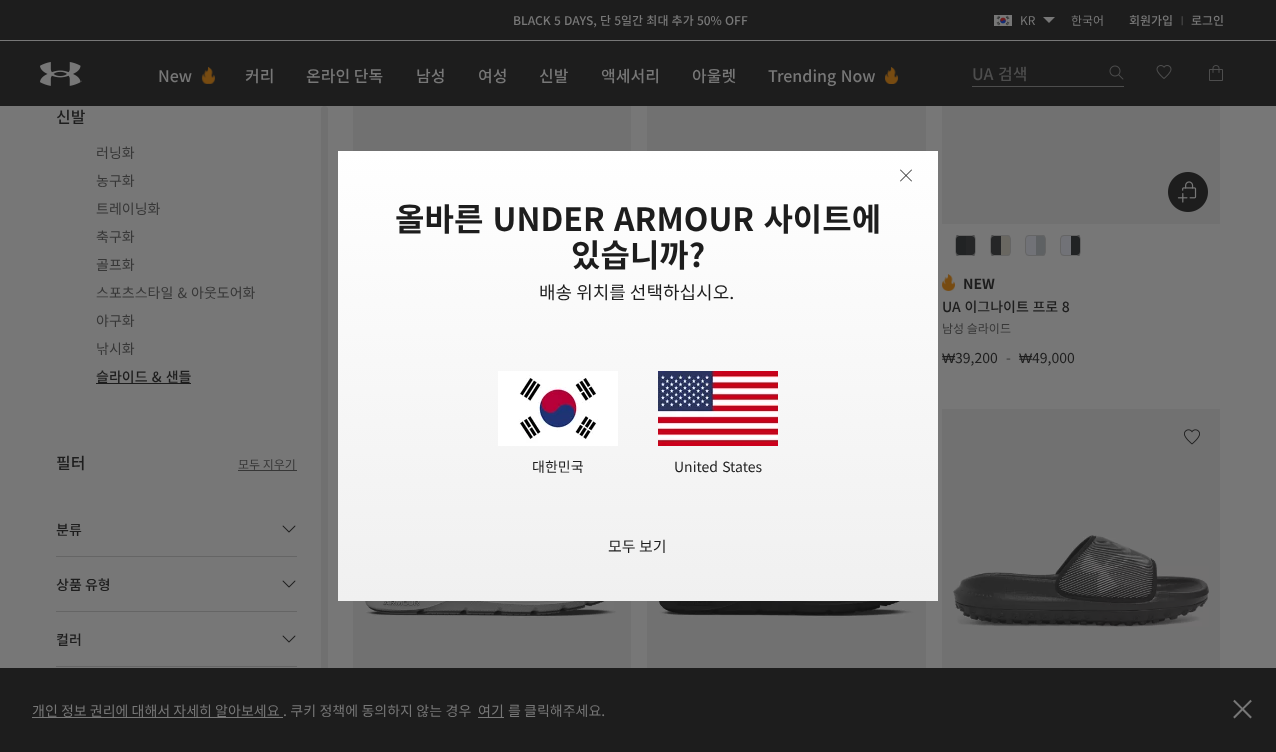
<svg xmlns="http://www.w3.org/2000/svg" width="1276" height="752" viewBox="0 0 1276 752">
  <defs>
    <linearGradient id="g1" gradientUnits="userSpaceOnUse" x1="21" y1="-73" x2="821" y2="-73"><stop offset="0.08" stop-color="#717171"/><stop offset="0.18" stop-color="#636363"/><stop offset="0.33" stop-color="#717171"/></linearGradient>
    <linearGradient id="g2" gradientUnits="userSpaceOnUse" x1="315" y1="-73" x2="1115" y2="-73"><stop offset="0.08" stop-color="#717171"/><stop offset="0.18" stop-color="#636363"/><stop offset="0.33" stop-color="#717171"/></linearGradient>
    <linearGradient id="g3" gradientUnits="userSpaceOnUse" x1="610" y1="-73" x2="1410" y2="-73"><stop offset="0.08" stop-color="#717171"/><stop offset="0.18" stop-color="#636363"/><stop offset="0.33" stop-color="#717171"/></linearGradient>
    <clipPath id="clip1"><rect x="955" y="235" width="21" height="21" rx="4"/></clipPath>
    <clipPath id="clip2"><rect x="990" y="235" width="21" height="21" rx="4"/></clipPath>
    <clipPath id="clip3"><rect x="1025" y="235" width="21" height="21" rx="4"/></clipPath>
    <clipPath id="clip4"><rect x="1060" y="235" width="21" height="21" rx="4"/></clipPath>
    <linearGradient id="g4" gradientUnits="userSpaceOnUse" x1="21" y1="461" x2="821" y2="461"><stop offset="0.08" stop-color="#717171"/><stop offset="0.18" stop-color="#636363"/><stop offset="0.33" stop-color="#717171"/></linearGradient>
    <linearGradient id="g5" gradientUnits="userSpaceOnUse" x1="315" y1="461" x2="1115" y2="461"><stop offset="0.08" stop-color="#717171"/><stop offset="0.18" stop-color="#636363"/><stop offset="0.33" stop-color="#717171"/></linearGradient>
    <linearGradient id="g6" gradientUnits="userSpaceOnUse" x1="610" y1="461" x2="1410" y2="461"><stop offset="0.08" stop-color="#717171"/><stop offset="0.18" stop-color="#636363"/><stop offset="0.33" stop-color="#717171"/></linearGradient>
    <linearGradient id="g7" gradientUnits="userSpaceOnUse" x1="638" y1="601" x2="638" y2="151"><stop offset="0" stop-color="#f0f0f0"/><stop offset="1" stop-color="#ffffff"/></linearGradient>
  </defs>
  <rect width="100%" height="100%" fill="#777777"/>
  <rect x="0" y="0" width="1276" height="106" fill="#1d1d1d"/>
  <text x="513" y="25" word-spacing="0.5" font-family="Noto Sans KR" font-size="12" font-weight="500" fill="#777777">BLACK 5 DAYS, 단 5일간 최대 추가 50% OFF</text>
  <image x="994" y="15" width="18" height="11" href="img1.png"/>
  <text x="1020" y="25" font-family="Noto Sans KR" font-size="12" fill="#777777">KR</text>
  <path d="M1043 17H1055L1049 23Z" fill="#777777"/>
  <text x="1071" y="25" font-family="Noto Sans KR" font-size="12" fill="#777777">한국어</text>
  <text x="1129" y="25" font-family="Noto Sans KR" font-size="12" font-weight="500" fill="#777777">회원가입</text>
  <text x="1181" y="23" font-family="Noto Sans KR" font-size="8" fill="#777777">|</text>
  <text x="1191" y="25" font-family="Noto Sans KR" font-size="12" font-weight="500" fill="#777777">로그인</text>
  <rect x="0" y="40" width="1276" height="1" fill="#777777"/>
  <image x="40" y="62" width="42" height="24" href="img2.png"/>
  <text x="158" y="82" font-family="Noto Sans KR" font-size="16" font-weight="500" fill="#777777">New</text>
  <image x="201" y="67" width="14" height="17" href="img3.png"/>
  <text x="245" y="82" font-family="Noto Sans KR" font-size="16" font-weight="500" fill="#777777">커리</text>
  <text x="306" y="82" font-family="Noto Sans KR" font-size="16" font-weight="500" fill="#777777">온라인 단독</text>
  <text x="416" y="82" font-family="Noto Sans KR" font-size="16" font-weight="500" fill="#777777">남성</text>
  <text x="478" y="82" font-family="Noto Sans KR" font-size="16" font-weight="500" fill="#777777">여성</text>
  <text x="539" y="82" font-family="Noto Sans KR" font-size="16" font-weight="500" fill="#777777">신발</text>
  <text x="601" y="82" font-family="Noto Sans KR" font-size="16" font-weight="500" fill="#777777">액세서리</text>
  <text x="692" y="82" font-family="Noto Sans KR" font-size="16" font-weight="500" fill="#777777">아울렛</text>
  <text x="768" y="82" word-spacing="1" font-family="Noto Sans KR" font-size="16" font-weight="500" fill="#777777">Trending Now</text>
  <image x="885" y="67" width="13" height="17" href="img4.png"/>
  <rect x="972" y="86" width="152" height="1" fill="#4d4d4d"/>
  <text x="972" y="80" word-spacing="1" font-family="Noto Sans KR" font-size="16" font-weight="500" fill="#4d4d4d">UA 검색</text>
  <image x="1109" y="65" width="15" height="15" href="img5.png"/>
  <image x="1156" y="65" width="16" height="14" href="img6.png"/>
  <image x="1209" y="65" width="14" height="16" href="img7.png"/>
  <text x="56" y="123" font-family="Noto Sans KR" font-size="16" font-weight="500" fill="#1d1d1d">신발</text>
  <text x="96" y="158" font-family="Noto Sans KR" font-size="14" fill="#373737">러닝화</text>
  <text x="96" y="186" font-family="Noto Sans KR" font-size="14" fill="#373737">농구화</text>
  <text x="96" y="214" font-family="Noto Sans KR" font-size="14" fill="#373737">트레이닝화</text>
  <text x="96" y="242" font-family="Noto Sans KR" font-size="14" fill="#373737">축구화</text>
  <text x="96" y="270" font-family="Noto Sans KR" font-size="14" fill="#373737">골프화</text>
  <text x="96" y="298" word-spacing="1" font-family="Noto Sans KR" font-size="14" fill="#373737">스포츠스타일 &amp; 아웃도어화</text>
  <text x="96" y="326" font-family="Noto Sans KR" font-size="14" fill="#373737">야구화</text>
  <text x="96" y="354" font-family="Noto Sans KR" font-size="14" fill="#373737">낚시화</text>
  <rect x="96" y="383" width="95" height="1" fill="#1d1d1d"/>
  <text x="96" y="382" word-spacing="1" font-family="Noto Sans KR" font-size="14" font-weight="500" fill="#1d1d1d">슬라이드 &amp; 샌들</text>
  <text x="56" y="469" font-family="Noto Sans KR" font-size="16" font-weight="500" fill="#1d1d1d">필터</text>
  <text x="238" y="469" font-family="Noto Sans KR" font-size="12" fill="#373737">모두 지우기</text>
  <rect x="238" y="470" width="59" height="1" fill="#373737"/>
  <rect x="56" y="556" width="241" height="1" fill="#656565"/>
  <text x="56" y="535" font-family="Noto Sans KR" font-size="14" font-weight="500" fill="#1d1d1d">분류</text>
  <image x="282" y="525" width="14" height="8" href="img8.png"/>
  <rect x="56" y="611" width="241" height="1" fill="#656565"/>
  <text x="56" y="590" font-family="Noto Sans KR" font-size="14" font-weight="500" fill="#1d1d1d">상품 유형</text>
  <image x="282" y="580" width="14" height="8" href="img8.png"/>
  <rect x="56" y="666" width="241" height="1" fill="#656565"/>
  <text x="56" y="645" font-family="Noto Sans KR" font-size="14" font-weight="500" fill="#1d1d1d">컬러</text>
  <image x="282" y="635" width="14" height="8" href="img8.png"/>
  <rect x="321" y="106" width="7" height="574" rx="3.5" fill="#707070"/>
  <rect x="353" y="106" width="278" height="45" fill="url(#g1)"/>
  <rect x="647" y="106" width="279" height="45" fill="url(#g2)"/>
  <rect x="942" y="106" width="278" height="118" fill="url(#g3)"/>
  <image x="1168" y="172" width="40" height="40" href="img9.png"/>
  <g clip-path="url(#clip1)">
    <rect x="956" y="235" width="10" height="21" fill="#212324"/>
    <rect x="966" y="235" width="9" height="21" fill="#252627"/>
  </g>
  <rect x="955.5" y="235.5" width="20" height="20" rx="3.5" fill="none" stroke="#656565"/>
  <g clip-path="url(#clip2)">
    <rect x="991" y="235" width="10" height="21" fill="#252627"/>
    <rect x="1001" y="235" width="9" height="21" fill="#696761"/>
  </g>
  <rect x="990.5" y="235.5" width="20" height="20" rx="3.5" fill="none" stroke="#656565"/>
  <g clip-path="url(#clip3)">
    <rect x="1026" y="235" width="10" height="21" fill="#717277"/>
    <rect x="1036" y="235" width="9" height="21" fill="#5e6163"/>
  </g>
  <rect x="1025.5" y="235.5" width="20" height="20" rx="3.5" fill="none" stroke="#656565"/>
  <g clip-path="url(#clip4)">
    <rect x="1061" y="235" width="10" height="21" fill="#717277"/>
    <rect x="1071" y="235" width="9" height="21" fill="#212324"/>
  </g>
  <rect x="1060.5" y="235.5" width="20" height="20" rx="3.5" fill="none" stroke="#656565"/>
  <image x="942" y="274" width="13" height="17" href="img10.png"/>
  <text x="963" y="289" font-family="Noto Sans KR" font-size="14" font-weight="bold" fill="#1d1d1d">NEW</text>
  <text x="942" y="312" word-spacing="0.5" font-family="Noto Sans KR" font-size="14" font-weight="500" fill="#1d1d1d">UA 이그나이트 프로 8</text>
  <text x="942" y="333" font-family="Noto Sans KR" font-size="12" fill="#373737">남성 슬라이드</text>
  <text x="942" y="363" font-family="Liberation Sans" font-size="14" fill="#1d1d1d">₩</text>
  <text x="955" y="363" font-family="Noto Sans KR" font-size="14" fill="#1d1d1d">39,200</text>
  <text x="1006" y="363" font-family="Noto Sans KR" font-size="14" fill="#373737">-</text>
  <text x="1019" y="363" font-family="Liberation Sans" font-size="14" fill="#1d1d1d">₩</text>
  <text x="1032" y="363" font-family="Noto Sans KR" font-size="14" fill="#1d1d1d">49,000</text>
  <rect x="353" y="601" width="278" height="67" fill="url(#g4)"/>
  <image x="364" y="601" width="256" height="17" href="img11.png"/>
  <rect x="647" y="601" width="279" height="67" fill="url(#g5)"/>
  <image x="658" y="601" width="258" height="17" href="img12.png"/>
  <rect x="942" y="409" width="278" height="259" fill="url(#g6)"/>
  <image x="953" y="535" width="256" height="92" href="img13.png"/>
  <image x="1184" y="429" width="16" height="16" href="img14.png"/>
  <rect x="338" y="151" width="600" height="450" fill="url(#g7)"/>
  <path d="M900.5 169.5L912 181L911.5 181.5L900 170Z" fill="#1d1d1d"/>
  <path d="M912 170L900.5 181.5L900 181L911.5 169.5Z" fill="#1d1d1d"/>
  <text x="395" y="231" word-spacing="2" font-family="Noto Sans KR" font-size="32" font-weight="bold" fill="#1d1d1d">올바른 UNDER ARMOUR 사이트에</text>
  <text x="571" y="267" font-family="Noto Sans KR" font-size="32" font-weight="bold" fill="#1d1d1d">있습니까?</text>
  <text x="539" y="299" font-family="Noto Sans KR" font-size="18" fill="#1d1d1d">배송 위치를 선택하십시오.</text>
  <image x="498" y="371" width="120" height="75" href="img15.png"/>
  <text x="532" y="472" font-family="Noto Sans KR" font-size="14" fill="#1d1d1d">대한민국</text>
  <image x="658" y="371" width="120" height="75" href="img16.png"/>
  <text x="674" y="472" word-spacing="1" font-family="Noto Sans KR" font-size="14" fill="#1d1d1d">United States</text>
  <text x="608" y="552" font-family="Noto Sans KR" font-size="15" fill="#1d1d1d">모두 보기</text>
  <rect x="0" y="668" width="1276" height="84" fill="#1d1d1d"/>
  <rect x="32" y="717" width="251" height="1" fill="#777777"/>
  <text x="32" y="716" font-family="Noto Sans KR" font-size="14" fill="#777777">개인 정보 권리에 대해서 자세히 알아보세요</text>
  <text x="283" y="716" word-spacing="0.25" font-family="Noto Sans KR" font-size="14" fill="#777777">. 쿠키 정책에 동의하지 않는 경우</text>
  <rect x="478" y="717" width="26" height="1" fill="#777777"/>
  <text x="478" y="716" font-family="Noto Sans KR" font-size="14" fill="#777777">여기</text>
  <text x="508" y="716" font-family="Noto Sans KR" font-size="14" fill="#777777">를 클릭해주세요.</text>
  <text x="1228" y="720" font-family="Noto Sans KR" font-size="29" fill="#777777">×</text>
</svg>
